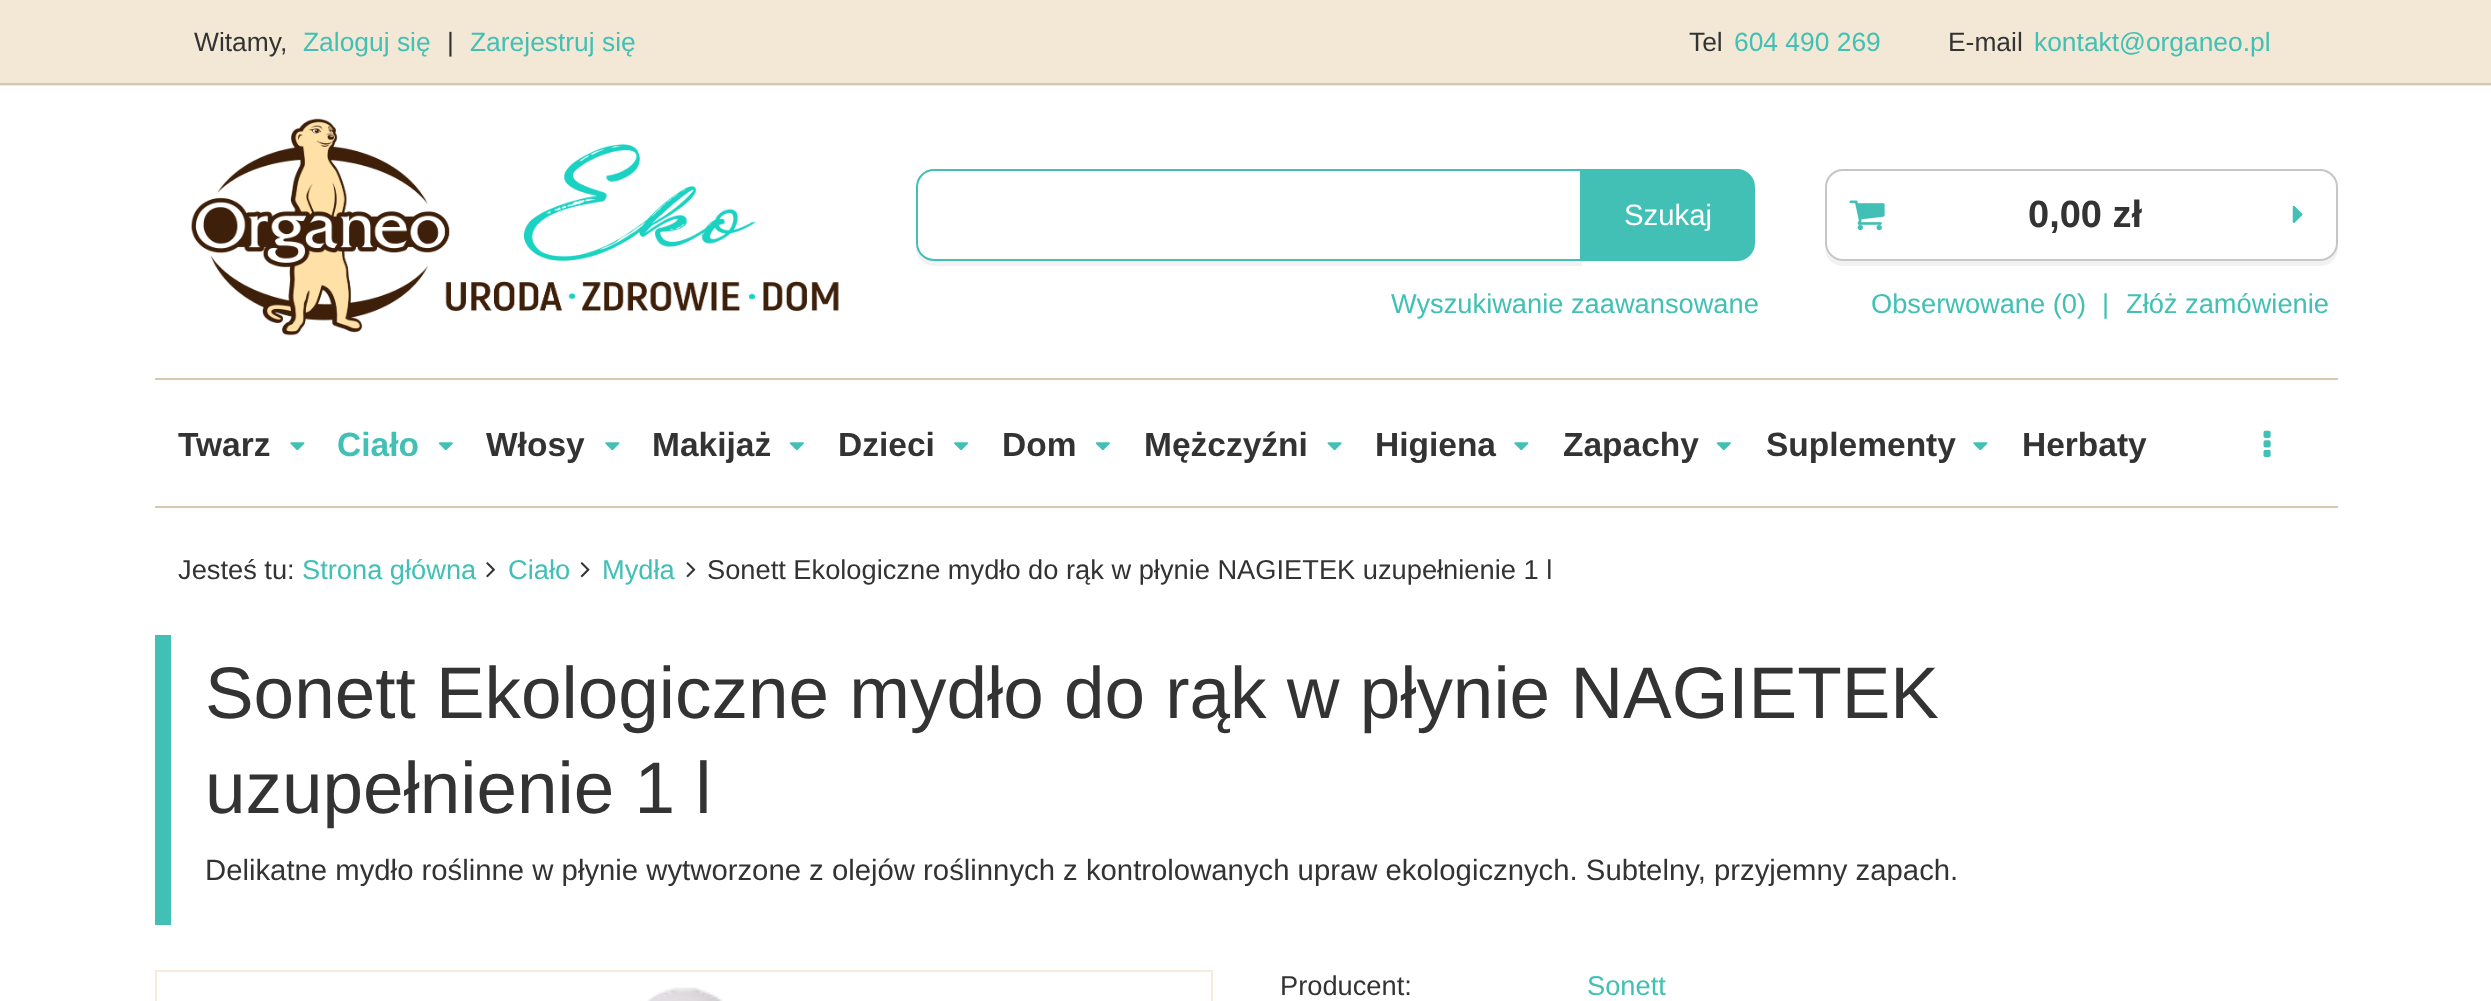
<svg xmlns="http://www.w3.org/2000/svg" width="2491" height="1001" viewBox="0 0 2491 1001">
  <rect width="100%" height="100%" fill="#ffffff"/>
  <rect x="0" y="0" width="2491" height="86" fill="#f2e8d5"/>
  <rect x="0" y="83" width="2491" height="2" fill="#d5c8af"/>
  <text x="194" y="51" font-family="Liberation Sans" font-size="26.4" fill="#333333">Witamy,</text>
  <text x="303" y="51" font-family="Liberation Sans" font-size="26.4" fill="#42c0b5">Zaloguj się</text>
  <text x="447" y="51" font-family="Liberation Sans" font-size="26.4" fill="#333333">|</text>
  <text x="470" y="51" font-family="Liberation Sans" font-size="26.4" fill="#42c0b5">Zarejestruj się</text>
  <text x="1689" y="51" font-family="Liberation Sans" font-size="26.4" fill="#333333">Tel</text>
  <text x="1734" y="51" font-family="Liberation Sans" font-size="26.4" fill="#42c0b5">604 490 269</text>
  <text x="1948" y="51" font-family="Liberation Sans" font-size="26.4" fill="#333333">E-mail</text>
  <text x="2034" y="51" font-family="Liberation Sans" font-size="26.4" fill="#42c0b5">kontakt@organeo.pl</text>
  <image x="190" y="118" width="649" height="218" href="img1.png"/>
  <path d="M916 246V248C916 258 924 266 934 266H1582V173V261H934C925 261 917 255 916 246Z" fill="#f2f2f2"/>
  <path d="M934 170H1581V260H934C924.5 260 917 252.5 917 243V187C917 177.5 924.5 170 934 170Z" fill="#ffffff" stroke="#42c0b5" stroke-width="2"/>
  <path d="M1581 170H1737C1746.5 170 1754 177.5 1754 187V243C1754 252.5 1746.5 260 1737 260H1581Z" fill="#42c0b5" stroke="#42c0b5" stroke-width="2"/>
  <text x="1624" y="225" font-family="Liberation Sans" font-size="29.3" fill="#ffffff">Szukaj</text>
  <text x="1391" y="313" font-family="Liberation Sans" font-size="27.25" fill="#42c0b5">Wyszukiwanie zaawansowane</text>
  <path d="M1825 246V248C1825 258 1833 266 1843 266H2320C2330 266 2338 258 2338 248V188V243C2338 253 2330 261 2320 261H1843C1834 261 1826 255 1825 246Z" fill="#f2f2f2"/>
  <rect x="1826" y="170" width="511" height="90" rx="17" fill="#ffffff" stroke="#c4c7c8" stroke-width="2"/>
  <image x="1849" y="200" width="36" height="31" href="img2.png"/>
  <text x="2028" y="227" font-family="Liberation Sans" font-size="38" font-weight="bold" fill="#333333">0,00 zł</text>
  <image x="2292" y="205" width="11" height="18" href="img3.png"/>
  <text x="1871" y="313" font-family="Liberation Sans" font-size="27.25" fill="#42c0b5">Obserwowane (0)</text>
  <text x="2102" y="313" font-family="Liberation Sans" font-size="27.25" fill="#42c0b5">|</text>
  <text x="2126" y="313" font-family="Liberation Sans" font-size="27.25" fill="#42c0b5">Złóż zamówienie</text>
  <rect x="155" y="378" width="2183" height="2" fill="#d5c8af"/>
  <rect x="155" y="506" width="2183" height="2" fill="#d5c8af"/>
  <text x="178" y="456" font-family="Liberation Sans" font-size="33.5" font-weight="bold" fill="#333333">Twarz</text>
  <image x="290" y="442" width="15" height="9" href="img4.png"/>
  <text x="337" y="456" font-family="Liberation Sans" font-size="33.5" font-weight="bold" fill="#42c0b5">Ciało</text>
  <image x="438" y="442" width="15" height="9" href="img5.png"/>
  <text x="486" y="456" font-family="Liberation Sans" font-size="33.5" font-weight="bold" fill="#333333">Włosy</text>
  <image x="605" y="442" width="15" height="9" href="img4.png"/>
  <text x="652" y="456" font-family="Liberation Sans" font-size="33.5" font-weight="bold" fill="#333333">Makijaż</text>
  <image x="789" y="442" width="15" height="9" href="img5.png"/>
  <text x="838" y="456" font-family="Liberation Sans" font-size="33.5" font-weight="bold" fill="#333333">Dzieci</text>
  <image x="954" y="442" width="15" height="9" href="img6.png"/>
  <text x="1002" y="456" font-family="Liberation Sans" font-size="33.5" font-weight="bold" fill="#333333">Dom</text>
  <image x="1095" y="442" width="15" height="9" href="img5.png"/>
  <text x="1144" y="456" font-family="Liberation Sans" font-size="33.5" font-weight="bold" fill="#333333">Mężczyźni</text>
  <image x="1327" y="442" width="15" height="9" href="img7.png"/>
  <text x="1375" y="456" font-family="Liberation Sans" font-size="33.5" font-weight="bold" fill="#333333">Higiena</text>
  <image x="1514" y="442" width="15" height="9" href="img4.png"/>
  <text x="1563" y="456" font-family="Liberation Sans" font-size="33.5" font-weight="bold" fill="#333333">Zapachy</text>
  <image x="1716" y="442" width="15" height="9" href="img5.png"/>
  <text x="1766" y="456" font-family="Liberation Sans" font-size="33.5" font-weight="bold" fill="#333333">Suplementy</text>
  <image x="1973" y="442" width="15" height="9" href="img4.png"/>
  <text x="2022" y="456" font-family="Liberation Sans" font-size="33.5" font-weight="bold" fill="#333333">Herbaty</text>
  <image x="2263" y="430" width="8" height="27" href="img8.png"/>
  <text x="178" y="579" font-family="Liberation Sans" font-size="27.25" fill="#333333">Jesteś tu:</text>
  <text x="302" y="579" font-family="Liberation Sans" font-size="27.25" fill="#42c0b5">Strona główna</text>
  <image x="486" y="562" width="9" height="16" href="img9.png"/>
  <text x="508" y="579" font-family="Liberation Sans" font-size="27.25" fill="#42c0b5">Ciało</text>
  <image x="580" y="562" width="10" height="16" href="img10.png"/>
  <text x="602" y="579" font-family="Liberation Sans" font-size="27.25" fill="#42c0b5">Mydła</text>
  <image x="686" y="562" width="10" height="16" href="img11.png"/>
  <text x="707" y="579" font-family="Liberation Sans" font-size="27.25" fill="#333333">Sonett Ekologiczne mydło do rąk w płynie NAGIETEK uzupełnienie 1 l</text>
  <rect x="155" y="635" width="16" height="290" fill="#42c0b5"/>
  <text x="205" y="718" font-family="Liberation Sans" font-size="72.9" fill="#333333">Sonett Ekologiczne mydło do rąk w płynie NAGIETEK</text>
  <text x="205" y="813" font-family="Liberation Sans" font-size="72.9" fill="#333333">uzupełnienie 1 l</text>
  <text x="205" y="880" font-family="Liberation Sans" font-size="29.3" fill="#333333">Delikatne mydło roślinne w płynie wytworzone z olejów roślinnych z kontrolowanych upraw ekologicznych. Subtelny, przyjemny zapach.</text>
  <rect x="156" y="971" width="1056" height="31" fill="none" stroke="#f6ecd9" stroke-width="2"/>
  <image x="647" y="987" width="76" height="14" href="img12.png"/>
  <text x="1280" y="995" font-family="Liberation Sans" font-size="27.25" fill="#333333">Producent:</text>
  <text x="1587" y="995" font-family="Liberation Sans" font-size="27.25" fill="#42c0b5">Sonett</text>
</svg>
